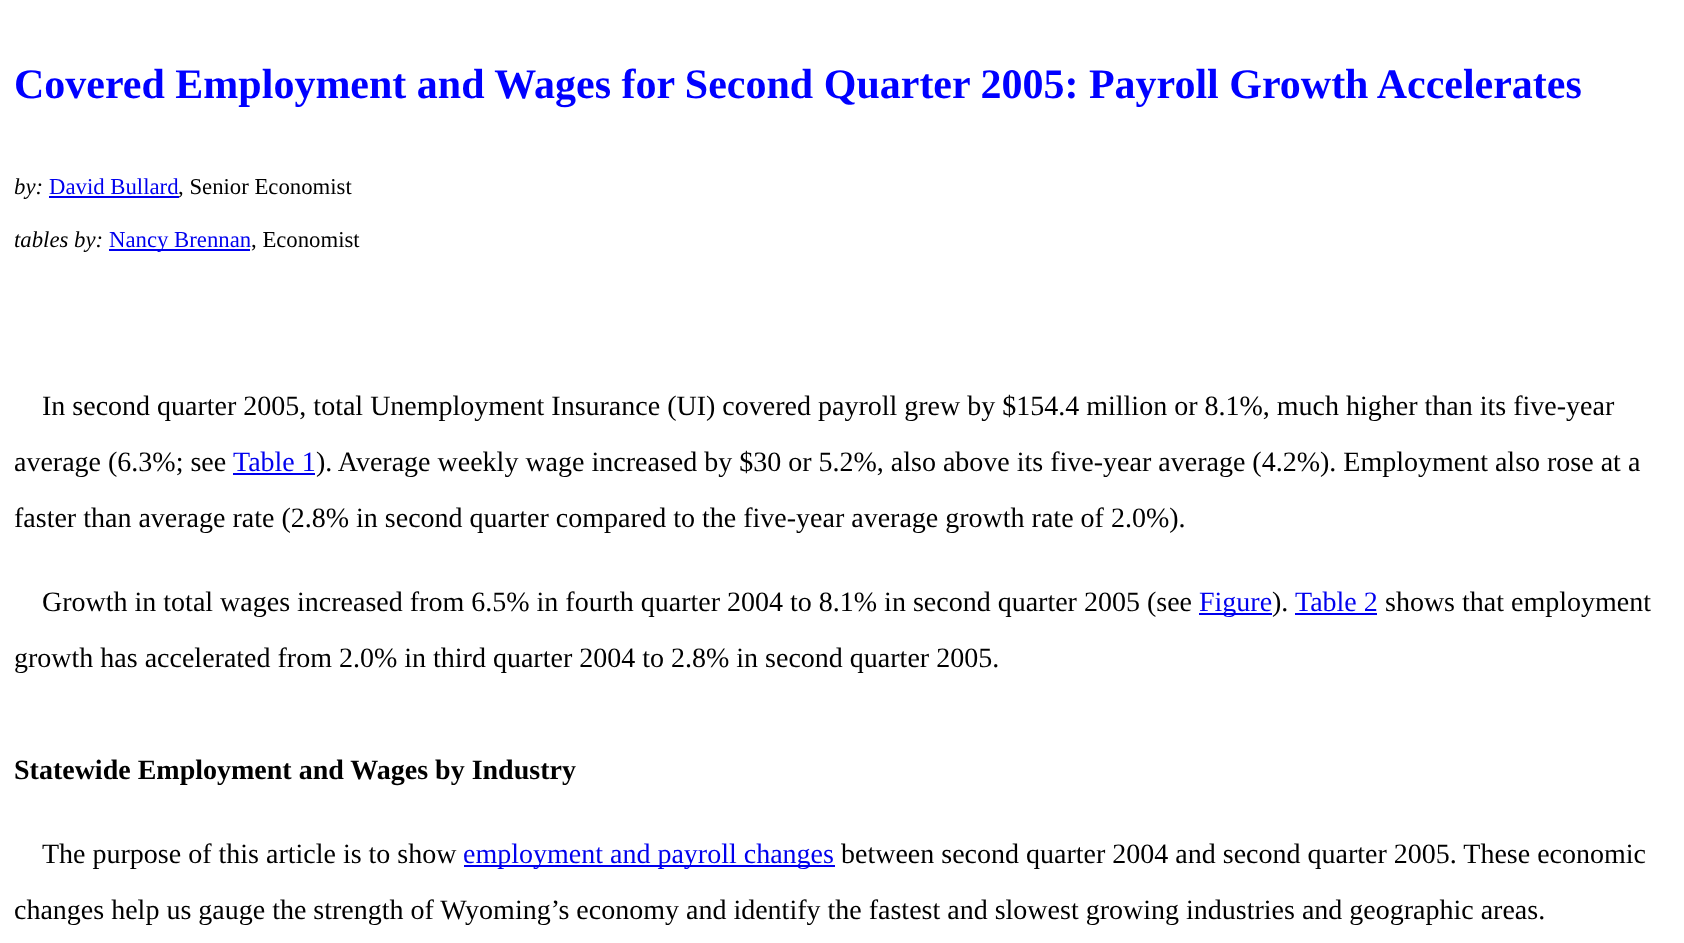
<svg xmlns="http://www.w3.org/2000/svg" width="1684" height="943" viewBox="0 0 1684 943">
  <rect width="100%" height="100%" fill="#ffffff"/>
  <text x="14" y="98" font-family="Liberation Serif" font-size="42" font-weight="bold" fill="#0000ff">Covered Employment and Wages for Second Quarter 2005: Payroll Growth Accelerates</text>
  <text x="14" y="194" font-family="Liberation Serif" font-size="22.75" font-style="italic" fill="#000000">by:</text>
  <text x="49" y="194" font-family="Liberation Serif" font-size="22.75" fill="#0000ee">David Bullard</text>
  <text x="178" y="194" font-family="Liberation Serif" font-size="22.75" fill="#000000">, Senior Economist</text>
  <rect x="49" y="196" width="130" height="2" fill="#0000ee"/>
  <text x="14" y="247" font-family="Liberation Serif" font-size="22.75" font-style="italic" fill="#000000">tables by:</text>
  <rect x="109" y="249" width="141" height="2" fill="#0000ee"/>
  <text x="109" y="247" font-family="Liberation Serif" font-size="22.75" fill="#0000ee">Nancy Brennan</text>
  <text x="251" y="247" font-family="Liberation Serif" font-size="22.75" fill="#000000">, Economist</text>
  <text x="42" y="415" font-family="Liberation Serif" font-size="28" fill="#000000">In second quarter 2005, total Unemployment Insurance (UI) covered payroll grew by $154.4 million or 8.1%, much higher than its five-year</text>
  <text x="14" y="471" font-family="Liberation Serif" font-size="28" fill="#000000">average (6.3%; see</text>
  <text x="233" y="471" font-family="Liberation Serif" font-size="28" fill="#0000ee">Table 1</text>
  <text x="316" y="471" font-family="Liberation Serif" font-size="28" fill="#000000">). Average weekly wage increased by $30 or 5.2%, also above its five-year average (4.2%). Employment also rose at a</text>
  <rect x="233" y="473" width="82" height="2" fill="#0000ee"/>
  <text x="14" y="527" font-family="Liberation Serif" font-size="28" fill="#000000">faster than average rate (2.8% in second quarter compared to the five-year average growth rate of 2.0%).</text>
  <text x="42" y="611" font-family="Liberation Serif" font-size="28" fill="#000000">Growth in total wages increased from 6.5% in fourth quarter 2004 to 8.1% in second quarter 2005 (see</text>
  <rect x="1199" y="613" width="73" height="2" fill="#0000ee"/>
  <text x="1199" y="611" font-family="Liberation Serif" font-size="28" fill="#0000ee">Figure</text>
  <text x="1272" y="611" font-family="Liberation Serif" font-size="28" fill="#000000">).</text>
  <text x="1295" y="611" font-family="Liberation Serif" font-size="28" fill="#0000ee">Table 2</text>
  <rect x="1295" y="613" width="82" height="2" fill="#0000ee"/>
  <text x="1385" y="611" font-family="Liberation Serif" font-size="28" fill="#000000">shows that employment</text>
  <text x="14" y="667" font-family="Liberation Serif" font-size="28" fill="#000000">growth has accelerated from 2.0% in third quarter 2004 to 2.8% in second quarter 2005.</text>
  <text x="14" y="779" font-family="Liberation Serif" font-size="28" font-weight="bold" fill="#000000">Statewide Employment and Wages by Industry</text>
  <text x="42" y="863" font-family="Liberation Serif" font-size="28" fill="#000000">The purpose of this article is to show</text>
  <rect x="464" y="865" width="371" height="2" fill="#0000ee"/>
  <text x="463" y="863" font-family="Liberation Serif" font-size="28" fill="#0000ee">employment and payroll changes</text>
  <text x="841" y="863" font-family="Liberation Serif" font-size="28" fill="#000000">between second quarter 2004 and second quarter 2005. These economic</text>
  <text x="14" y="919" font-family="Liberation Serif" font-size="28" fill="#000000">changes help us gauge the strength of Wyoming’s economy and identify the fastest and slowest growing industries and geographic areas.</text>
</svg>
